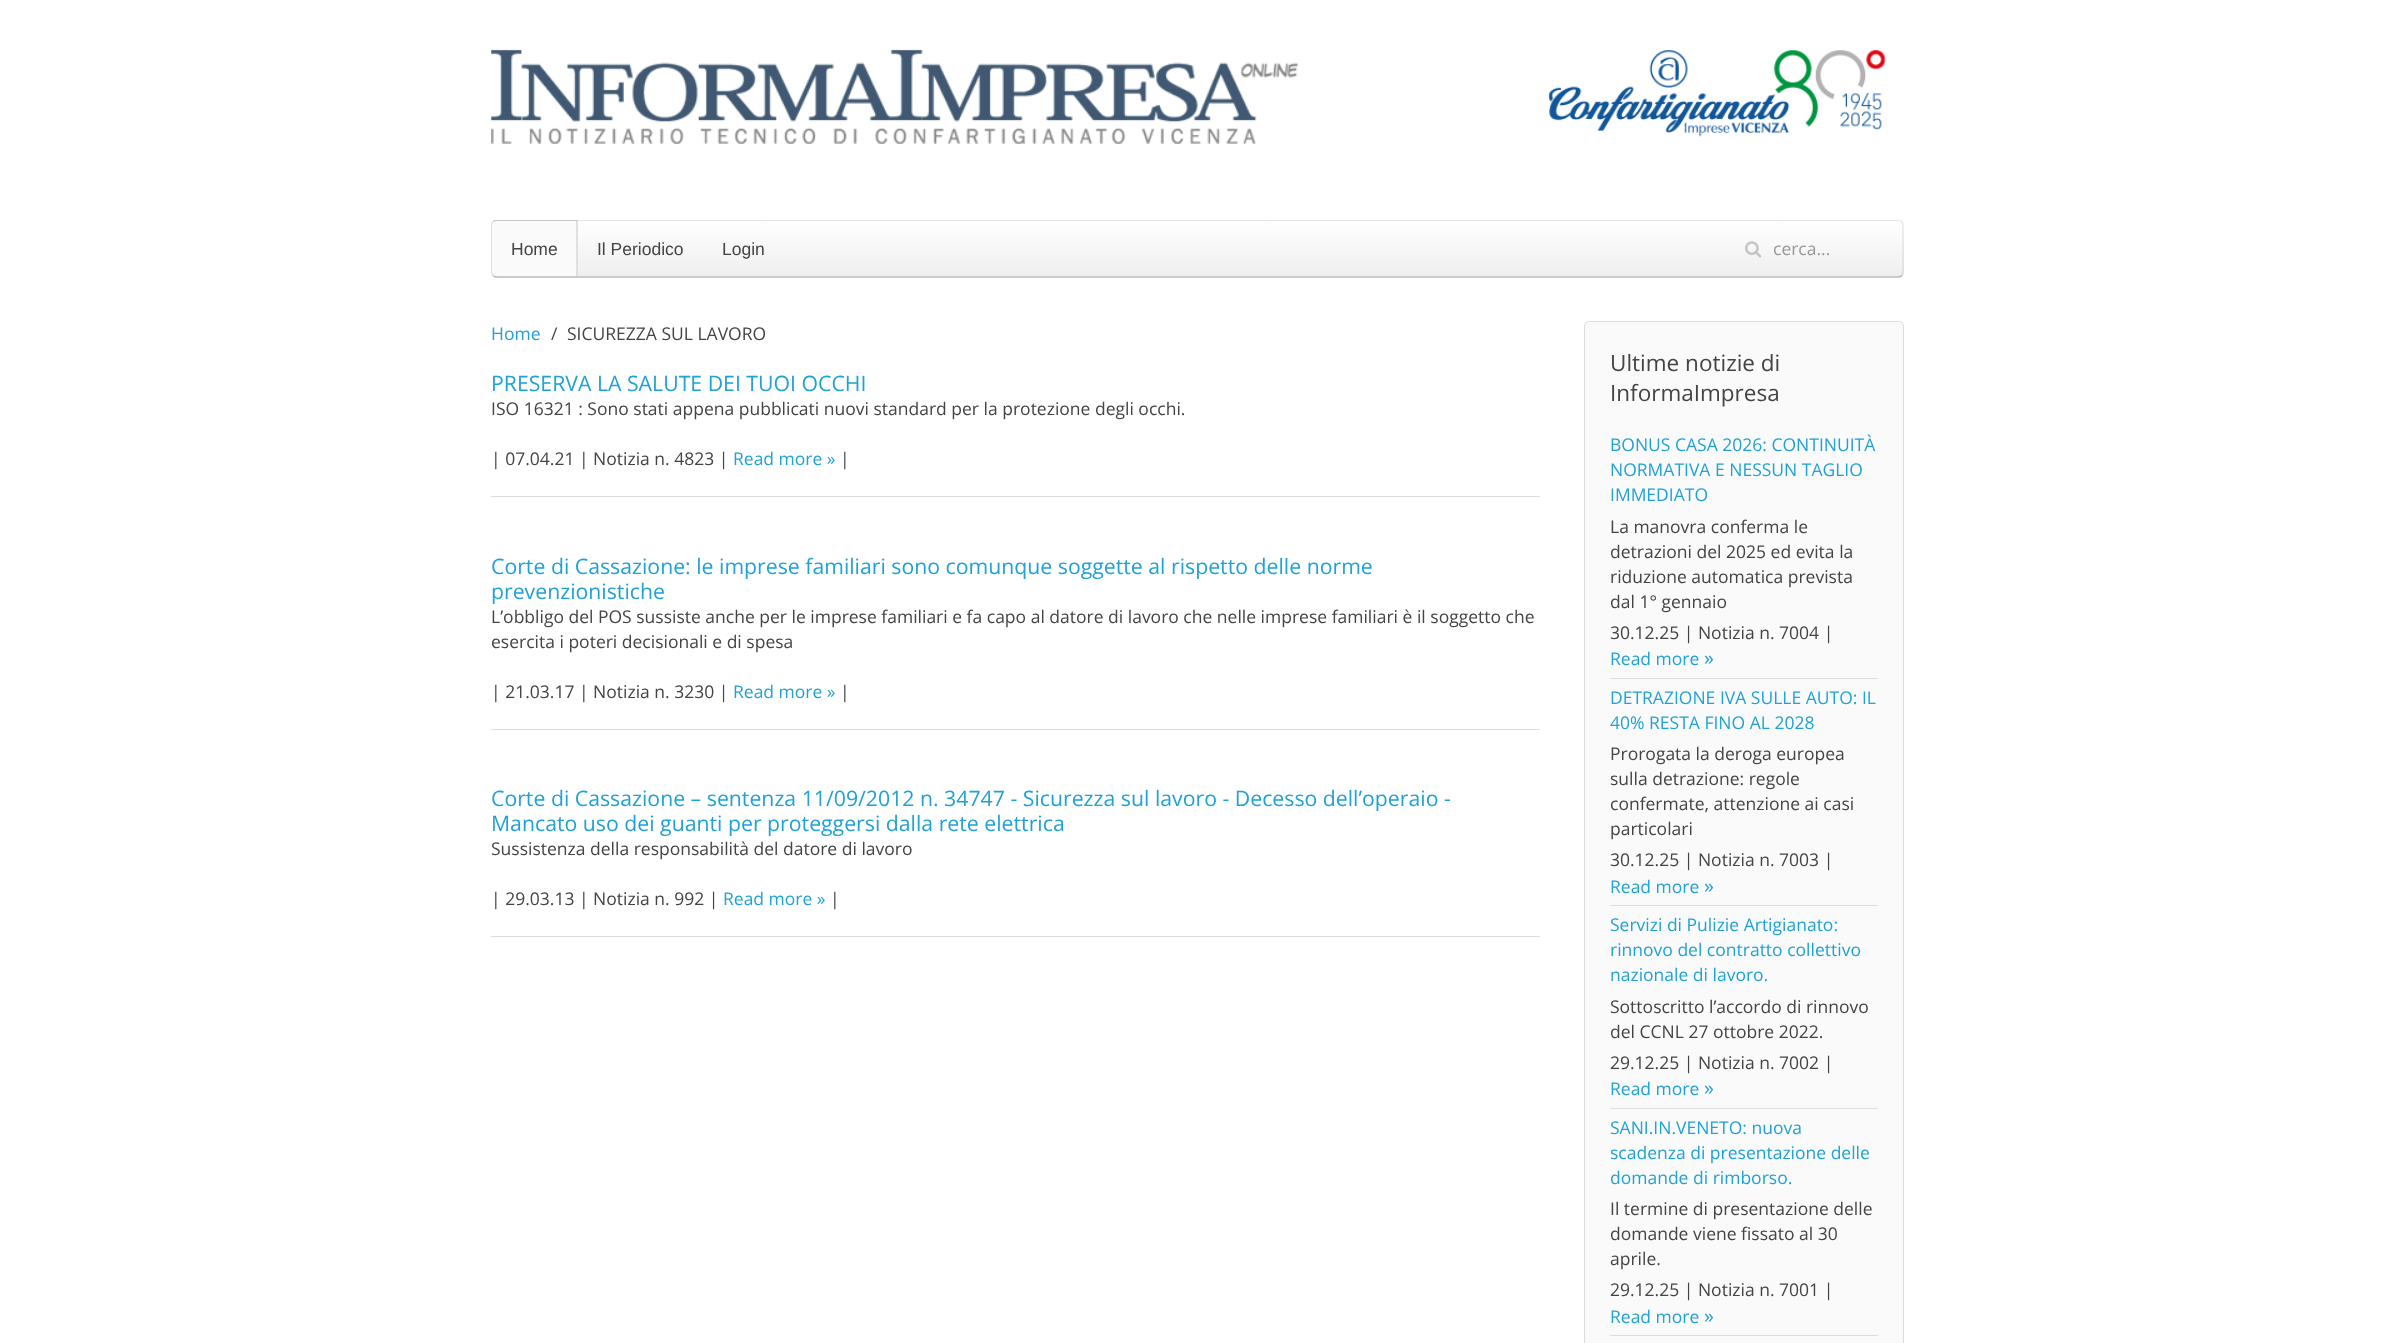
<svg xmlns="http://www.w3.org/2000/svg" width="2394" height="1343" viewBox="0 0 2394 1343">
  <defs>
    <linearGradient id="g1" gradientUnits="userSpaceOnUse" x1="1198" y1="220" x2="1198" y2="278"><stop offset="0" stop-color="#ffffff"/><stop offset="1" stop-color="#eeeeee"/></linearGradient>
  </defs>
  <rect width="100%" height="100%" fill="#ffffff"/>
  <image x="491" y="49" width="807" height="95" href="img1.png"/>
  <image x="1548" y="50" width="338" height="87" href="img2.png"/>
  <rect x="491" y="220" width="1413" height="58" rx="5" fill="url(#g1)"/>
  <path d="M1902 275.5L1899 277H496L493 275.5" fill="none" stroke="#a7a7a7" stroke-width="1.2"/>
  <path d="M493 275.5C492.5 275 492 273.5 492 272.5V225C492 224 492.5 222.5 493 222C494 221 495 220.5 496 220.5H1899C1900 220.5 1901 221 1902 222C1902.5 222.5 1903 224 1903 225V272.5C1903 273.5 1902.5 275 1902 275.5" fill="none" stroke="#000000" stroke-opacity="0.1" stroke-width="1.2"/>
  <path d="M496 220H578V276H496C493 276 491 274 491 271V225C491 222 493 220 496 220Z" fill="#fafafa"/>
  <path d="M496 220C495 220 493 220 493 221V222L496 221H576V222L578 220Z" fill="#000000" fill-opacity="0.2"/>
  <path d="M578 220V276H576V222Z" fill="#000000" fill-opacity="0.1"/>
  <path d="M491 223L493 221V222C493 223 492 224 492 225V271C492 274 494 276 496 276C494 276 492 275 491 273Z" fill="#000000" fill-opacity="0.1"/>
  <text x="511" y="255" font-family="Liberation Sans" font-size="17.5" fill="#444444">Home</text>
  <text x="597" y="255" font-family="Liberation Sans" font-size="17.5" fill="#444444">Il Periodico</text>
  <text x="722" y="255" font-family="Liberation Sans" font-size="17.5" fill="#444444">Login</text>
  <image x="1745" y="241" width="17" height="17" href="img3.png"/>
  <text x="1773" y="255" font-family="Open Sans" font-size="17.5" fill="#999999">cerca...</text>
  <text x="491" y="340" font-family="Open Sans" font-size="17.5" fill="#1fa2d6">Home</text>
  <text x="551" y="340" font-family="Open Sans" font-size="17.5" fill="#444444">/</text>
  <text x="567" y="340" font-family="Open Sans" font-size="17.5" fill="#444444">SICUREZZA SUL LAVORO</text>
  <text x="491" y="391" font-family="Open Sans" font-size="21.25" fill="#1fa2d6">PRESERVA LA SALUTE DEI TUOI OCCHI</text>
  <text x="491" y="415" font-family="Open Sans" font-size="17.5" fill="#444444">ISO 16321 : Sono stati appena pubblicati nuovi standard per la protezione degli occhi.</text>
  <text x="491" y="465" font-family="Open Sans" font-size="17.5" fill="#444444">| 07.04.21 | Notizia n. 4823 |</text>
  <text x="733" y="465" font-family="Open Sans" font-size="17.5" fill="#1fa2d6">Read more »</text>
  <text x="840" y="465" font-family="Open Sans" font-size="17.5" fill="#444444">|</text>
  <rect x="491" y="496" width="1049" height="1" fill="#dddddd"/>
  <text x="491" y="574" font-family="Open Sans" font-size="21.25" fill="#1fa2d6">Corte di Cassazione: le imprese familiari sono comunque soggette al rispetto delle norme</text>
  <text x="491" y="599" font-family="Open Sans" font-size="21.25" fill="#1fa2d6">prevenzionistiche</text>
  <text x="491" y="623" font-family="Open Sans" font-size="17.5" fill="#444444">L’obbligo del POS sussiste anche per le imprese familiari e fa capo al datore di lavoro che nelle imprese familiari è il soggetto che</text>
  <text x="491" y="648" font-family="Open Sans" font-size="17.5" fill="#444444">esercita i poteri decisionali e di spesa</text>
  <text x="491" y="698" font-family="Open Sans" font-size="17.5" fill="#444444">| 21.03.17 | Notizia n. 3230 |</text>
  <text x="733" y="698" font-family="Open Sans" font-size="17.5" fill="#1fa2d6">Read more »</text>
  <text x="840" y="698" font-family="Open Sans" font-size="17.5" fill="#444444">|</text>
  <rect x="491" y="729" width="1049" height="1" fill="#dddddd"/>
  <text x="491" y="806" font-family="Open Sans" font-size="21.25" fill="#1fa2d6">Corte di Cassazione – sentenza 11/09/2012 n. 34747 - Sicurezza sul lavoro - Decesso dell’operaio -</text>
  <text x="491" y="831" font-family="Open Sans" font-size="21.25" fill="#1fa2d6">Mancato uso dei guanti per proteggersi dalla rete elettrica</text>
  <text x="491" y="855" font-family="Open Sans" font-size="17.5" fill="#444444">Sussistenza della responsabilità del datore di lavoro</text>
  <text x="491" y="905" font-family="Open Sans" font-size="17.5" fill="#444444">| 29.03.13 | Notizia n. 992 |</text>
  <text x="723" y="905" font-family="Open Sans" font-size="17.5" fill="#1fa2d6">Read more »</text>
  <text x="830" y="905" font-family="Open Sans" font-size="17.5" fill="#444444">|</text>
  <rect x="491" y="936" width="1049" height="1" fill="#dddddd"/>
  <rect x="1584.5" y="321.5" width="319" height="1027" rx="4.5" fill="#fafafa" stroke="#dddddd"/>
  <text x="1610" y="371" font-family="Open Sans" font-size="22.5" fill="#444444">Ultime notizie di</text>
  <text x="1610" y="401" font-family="Open Sans" font-size="22.5" fill="#444444">InformaImpresa</text>
  <text x="1610" y="451" font-family="Open Sans" font-size="17.5" fill="#1fa2d6">BONUS CASA 2026: CONTINUITÀ</text>
  <text x="1610" y="476" font-family="Open Sans" font-size="17.5" fill="#1fa2d6">NORMATIVA E NESSUN TAGLIO</text>
  <text x="1610" y="501" font-family="Open Sans" font-size="17.5" fill="#1fa2d6">IMMEDIATO</text>
  <text x="1610" y="533" font-family="Open Sans" font-size="17.5" fill="#444444">La manovra conferma le</text>
  <text x="1610" y="558" font-family="Open Sans" font-size="17.5" fill="#444444">detrazioni del 2025 ed evita la</text>
  <text x="1610" y="583" font-family="Open Sans" font-size="17.5" fill="#444444">riduzione automatica prevista</text>
  <text x="1610" y="608" font-family="Open Sans" font-size="17.5" fill="#444444">dal 1° gennaio</text>
  <text x="1610" y="639" font-family="Open Sans" font-size="17.5" fill="#444444">30.12.25 | Notizia n. 7004 |</text>
  <text x="1610" y="665" font-family="Open Sans" font-size="17.5" fill="#1fa2d6">Read more</text>
  <text x="1704" y="665" font-family="Open Sans" font-size="20" fill="#1fa2d6">»</text>
  <rect x="1610" y="678" width="268" height="1" fill="#dddddd"/>
  <text x="1610" y="704" font-family="Open Sans" font-size="17.5" fill="#1fa2d6">DETRAZIONE IVA SULLE AUTO: IL</text>
  <text x="1610" y="729" font-family="Open Sans" font-size="17.5" fill="#1fa2d6">40% RESTA FINO AL 2028</text>
  <text x="1610" y="760" font-family="Open Sans" font-size="17.5" fill="#444444">Prorogata la deroga europea</text>
  <text x="1610" y="785" font-family="Open Sans" font-size="17.5" fill="#444444">sulla detrazione: regole</text>
  <text x="1610" y="810" font-family="Open Sans" font-size="17.5" fill="#444444">confermate, attenzione ai casi</text>
  <text x="1610" y="835" font-family="Open Sans" font-size="17.5" fill="#444444">particolari</text>
  <text x="1610" y="866" font-family="Open Sans" font-size="17.5" fill="#444444">30.12.25 | Notizia n. 7003 |</text>
  <text x="1610" y="893" font-family="Open Sans" font-size="17.5" fill="#1fa2d6">Read more</text>
  <text x="1704" y="893" font-family="Open Sans" font-size="20" fill="#1fa2d6">»</text>
  <rect x="1610" y="905" width="268" height="1" fill="#dddddd"/>
  <text x="1610" y="931" font-family="Open Sans" font-size="17.5" fill="#1fa2d6">Servizi di Pulizie Artigianato:</text>
  <text x="1610" y="956" font-family="Open Sans" font-size="17.5" fill="#1fa2d6">rinnovo del contratto collettivo</text>
  <text x="1610" y="981" font-family="Open Sans" font-size="17.5" fill="#1fa2d6">nazionale di lavoro.</text>
  <text x="1610" y="1013" font-family="Open Sans" font-size="17.5" fill="#444444">Sottoscritto l’accordo di rinnovo</text>
  <text x="1610" y="1038" font-family="Open Sans" font-size="17.5" fill="#444444">del CCNL 27 ottobre 2022.</text>
  <text x="1610" y="1069" font-family="Open Sans" font-size="17.5" fill="#444444">29.12.25 | Notizia n. 7002 |</text>
  <text x="1610" y="1095" font-family="Open Sans" font-size="17.5" fill="#1fa2d6">Read more</text>
  <text x="1704" y="1095" font-family="Open Sans" font-size="20" fill="#1fa2d6">»</text>
  <rect x="1610" y="1108" width="268" height="1" fill="#dddddd"/>
  <text x="1610" y="1134" font-family="Open Sans" font-size="17.5" fill="#1fa2d6">SANI.IN.VENETO: nuova</text>
  <text x="1610" y="1159" font-family="Open Sans" font-size="17.5" fill="#1fa2d6">scadenza di presentazione delle</text>
  <text x="1610" y="1184" font-family="Open Sans" font-size="17.5" fill="#1fa2d6">domande di rimborso.</text>
  <text x="1610" y="1215" font-family="Open Sans" font-size="17.5" fill="#444444">Il termine di presentazione delle</text>
  <text x="1610" y="1240" font-family="Open Sans" font-size="17.5" fill="#444444">domande viene fissato al 30</text>
  <text x="1610" y="1265" font-family="Open Sans" font-size="17.5" fill="#444444">aprile.</text>
  <text x="1610" y="1296" font-family="Open Sans" font-size="17.5" fill="#444444">29.12.25 | Notizia n. 7001 |</text>
  <text x="1610" y="1323" font-family="Open Sans" font-size="17.5" fill="#1fa2d6">Read more</text>
  <text x="1704" y="1323" font-family="Open Sans" font-size="20" fill="#1fa2d6">»</text>
  <rect x="1610" y="1335" width="268" height="1" fill="#dddddd"/>
</svg>
